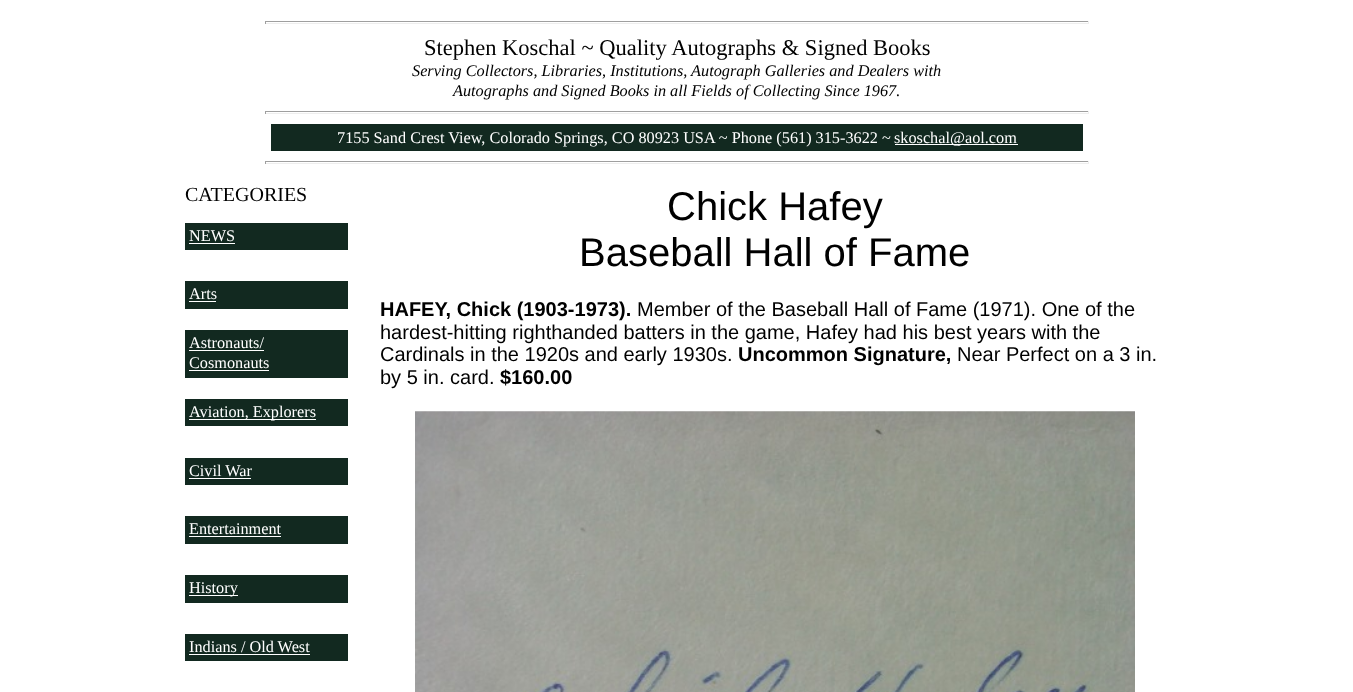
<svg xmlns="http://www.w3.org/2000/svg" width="1353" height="692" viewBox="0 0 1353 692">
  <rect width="100%" height="100%" fill="#ffffff"/>
  <rect x="265" y="21" width="824" height="1" fill="#9f9f9f"/>
  <rect x="1088" y="21" width="1" height="3" fill="#eeeeee"/>
  <rect x="265" y="23" width="824" height="1" fill="#eeeeee"/>
  <rect x="265" y="21" width="1" height="3" fill="#9f9f9f"/>
  <text x="424" y="55" font-family="Liberation Serif" font-size="22.5" fill="#000000">Stephen Koschal ~ Quality Autographs &amp; Signed Books</text>
  <text x="412" y="76" font-family="Liberation Serif" font-size="16.25" font-style="italic" fill="#000000">Serving Collectors, Libraries, Institutions, Autograph Galleries and Dealers with</text>
  <text x="453" y="96" font-family="Liberation Serif" font-size="16.25" font-style="italic" fill="#000000">Autographs and Signed Books in all Fields of Collecting Since 1967.</text>
  <rect x="265" y="111" width="824" height="1" fill="#9f9f9f"/>
  <rect x="1088" y="111" width="1" height="3" fill="#eeeeee"/>
  <rect x="265" y="113" width="824" height="1" fill="#eeeeee"/>
  <rect x="265" y="111" width="1" height="3" fill="#9f9f9f"/>
  <rect x="271" y="124" width="812" height="27" fill="#122920"/>
  <text x="337" y="143" font-family="Liberation Serif" font-size="16.25" fill="#ffffff">7155 Sand Crest View, Colorado Springs, CO 80923 USA ~ Phone (561) 315-3622 ~</text>
  <rect x="895" y="144" width="123" height="1" fill="#ffffff"/>
  <text x="894" y="143" font-family="Liberation Serif" font-size="16.25" fill="#ffffff">skoschal@aol.com</text>
  <rect x="265" y="161" width="824" height="1" fill="#9f9f9f"/>
  <rect x="1088" y="161" width="1" height="3" fill="#eeeeee"/>
  <rect x="265" y="163" width="824" height="1" fill="#eeeeee"/>
  <rect x="265" y="161" width="1" height="3" fill="#9f9f9f"/>
  <text x="185" y="201" font-family="Liberation Serif" font-size="20" fill="#000000">CATEGORIES</text>
  <rect x="185" y="223" width="163" height="27" fill="#122920"/>
  <text x="189" y="241" font-family="Liberation Serif" font-size="16.25" fill="#ffffff">NEWS</text>
  <rect x="189" y="243" width="46" height="1" fill="#ffffff"/>
  <rect x="185" y="281" width="163" height="28" fill="#122920"/>
  <text x="189" y="299" font-family="Liberation Serif" font-size="16.25" fill="#ffffff">Arts</text>
  <rect x="189" y="301" width="27" height="1" fill="#ffffff"/>
  <rect x="185" y="330" width="163" height="48" fill="#122920"/>
  <text x="189" y="348" font-family="Liberation Serif" font-size="16.25" fill="#ffffff">Astronauts/</text>
  <rect x="189" y="350" width="75" height="1" fill="#ffffff"/>
  <text x="189" y="368" font-family="Liberation Serif" font-size="16.25" fill="#ffffff">Cosmonauts</text>
  <rect x="189" y="370" width="80" height="1" fill="#ffffff"/>
  <rect x="185" y="399" width="163" height="27" fill="#122920"/>
  <rect x="189" y="419" width="127" height="1" fill="#ffffff"/>
  <text x="189" y="417" font-family="Liberation Serif" font-size="16.25" fill="#ffffff">Aviation, Explorers</text>
  <rect x="185" y="458" width="163" height="27" fill="#122920"/>
  <text x="189" y="476" font-family="Liberation Serif" font-size="16.25" fill="#ffffff">Civil War</text>
  <rect x="189" y="478" width="62" height="1" fill="#ffffff"/>
  <rect x="185" y="516" width="163" height="28" fill="#122920"/>
  <text x="189" y="534" font-family="Liberation Serif" font-size="16.25" fill="#ffffff">Entertainment</text>
  <rect x="189" y="536" width="92" height="1" fill="#ffffff"/>
  <rect x="185" y="575" width="163" height="28" fill="#122920"/>
  <rect x="189" y="595" width="49" height="1" fill="#ffffff"/>
  <text x="189" y="593" font-family="Liberation Serif" font-size="16.25" fill="#ffffff">History</text>
  <rect x="185" y="634" width="163" height="27" fill="#122920"/>
  <text x="189" y="652" font-family="Liberation Serif" font-size="16.25" fill="#ffffff">Indians / Old West</text>
  <rect x="189" y="654" width="121" height="1" fill="#ffffff"/>
  <text x="667" y="220" font-family="Liberation Sans" font-size="40" fill="#000000">Chick Hafey</text>
  <text x="579" y="266" font-family="Liberation Sans" font-size="40" fill="#000000">Baseball Hall of Fame</text>
  <text x="380" y="316" font-family="Liberation Sans" font-size="20" font-weight="bold" fill="#000000">HAFEY, Chick (1903-1973).</text>
  <text x="637" y="316" font-family="Liberation Sans" font-size="20" fill="#000000">Member of the Baseball Hall of Fame (1971). One of the</text>
  <text x="380" y="339" font-family="Liberation Sans" font-size="20" fill="#000000">hardest-hitting righthanded batters in the game, Hafey had his best years with the</text>
  <text x="380" y="361" font-family="Liberation Sans" font-size="20" fill="#000000">Cardinals in the 1920s and early 1930s.</text>
  <text x="738" y="361" font-family="Liberation Sans" font-size="20" font-weight="bold" fill="#000000">Uncommon Signature,</text>
  <text x="957" y="361" font-family="Liberation Sans" font-size="20" fill="#000000">Near Perfect on a 3 in.</text>
  <text x="380" y="384" font-family="Liberation Sans" font-size="20" fill="#000000">by 5 in. card.</text>
  <text x="500" y="384" font-family="Liberation Sans" font-size="20" font-weight="bold" fill="#000000">$160.00</text>
  <image x="415" y="411" width="720" height="281" href="img1.png"/>
</svg>
